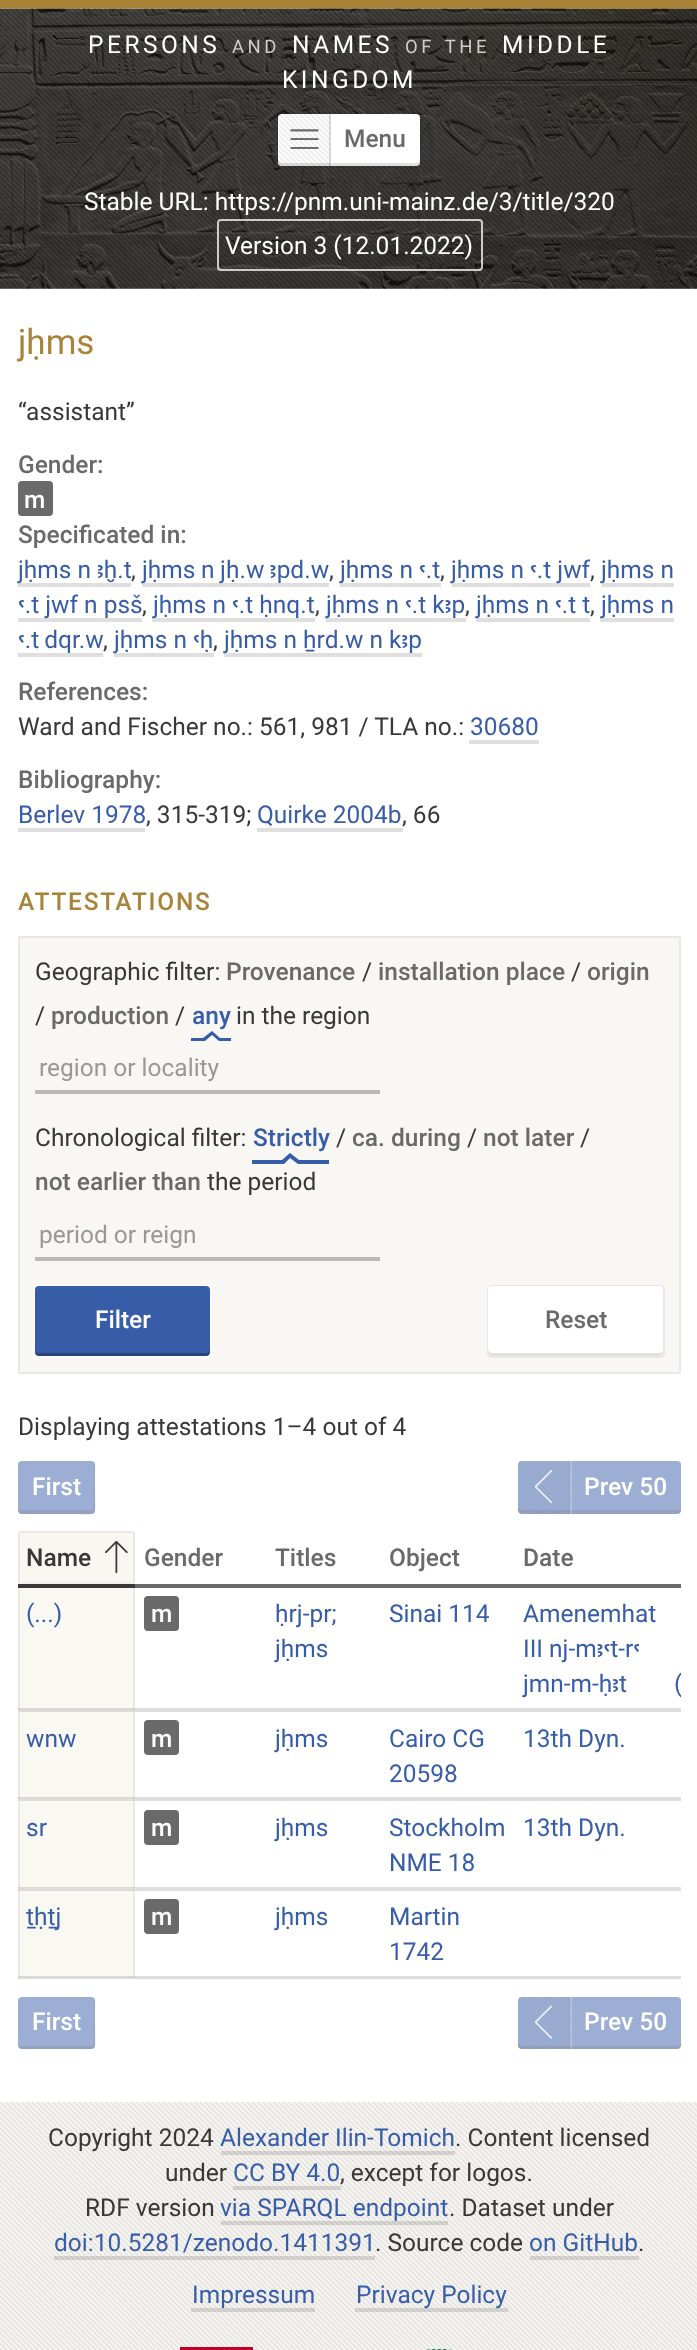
<svg xmlns="http://www.w3.org/2000/svg" width="697" height="2350" viewBox="0 0 697 2350">
  <defs>
    <clipPath id="clip1"><rect x="191" y="1031" width="40" height="10"/></clipPath>
    <clipPath id="clip2"><rect x="252" y="1153" width="77" height="11"/></clipPath>
    <clipPath id="clip3"><rect x="18" y="1531" width="663" height="448"/></clipPath>
  </defs>
  <rect width="100%" height="100%" fill="#ffffff"/>
  <rect x="20" y="1891" width="113" height="85" fill="#faf8f3"/>
  <rect x="18" y="1890" width="2" height="88" fill="#ebe9e4"/>
  <rect x="133" y="1890" width="2" height="88" fill="#ebe9e4"/>
  <rect x="20" y="1801" width="113" height="86" fill="#faf8f3"/>
  <rect x="18" y="1801" width="2" height="87" fill="#ebe9e4"/>
  <rect x="133" y="1801" width="2" height="87" fill="#ebe9e4"/>
  <rect x="20" y="1712" width="113" height="85" fill="#faf8f3"/>
  <rect x="18" y="1712" width="2" height="87" fill="#ebe9e4"/>
  <rect x="133" y="1712" width="2" height="87" fill="#ebe9e4"/>
  <rect x="20" y="1588" width="113" height="120" fill="#faf8f3"/>
  <rect x="18" y="1587" width="2" height="123" fill="#ebe9e4"/>
  <rect x="133" y="1587" width="2" height="123" fill="#ebe9e4"/>
  <rect x="0" y="0" width="697" height="9" fill="#a88338"/>
  <image x="0" y="8" width="697" height="281" href="img1.png"/>
  <image x="0" y="8" width="697" height="281" href="img2.png"/>
  <text x="88" y="53" font-family="Roboto" font-size="24.5" letter-spacing="3.5" fill="#ffffff">PERSONS</text>
  <text x="232" y="53" font-family="Roboto" font-size="18.5" letter-spacing="3.5" fill="#cecdcd">AND</text>
  <text x="292" y="53" font-family="Roboto" font-size="24.5" letter-spacing="3.5" fill="#ffffff">NAMES</text>
  <text x="405" y="53" word-spacing="2" font-family="Roboto" font-size="18.5" letter-spacing="3.5" fill="#cecdcd">OF THE</text>
  <text x="502" y="53" font-family="Roboto" font-size="24.5" letter-spacing="3.5" fill="#ffffff">MIDDLE</text>
  <text x="282" y="88" font-family="Roboto" font-size="24.5" letter-spacing="3.5" fill="#ffffff">KINGDOM</text>
  <rect x="278" y="113" width="143" height="54" fill="none" stroke="#000000" stroke-opacity="0.06" stroke-width="2"/>
  <rect x="278" y="114" width="142" height="52" rx="4" fill="#ffffff"/>
  <path d="M278 159V162C278 164 280 166 282 166H416C418 166 420 164 420 162V159C420 161 418 163 416 163H282C280 163 278 161 278 159Z" fill="#000000" fill-opacity="0.12"/>
  <rect x="331" y="163" width="2" height="3" fill="#ffffff" fill-opacity="0.25"/>
  <image x="278" y="114" width="53" height="52" href="img3.png"/>
  <rect x="329" y="114" width="2" height="52" fill="#000000" fill-opacity="0.12"/>
  <image x="290" y="129" width="29" height="20" href="img4.png"/>
  <text x="344" y="147" font-family="Roboto" font-size="24.5" font-weight="500" fill="#6a6a6a">Menu</text>
  <text x="84" y="210" font-family="Roboto" font-size="24.5" fill="#ffffff">Stable URL: https://pnm.uni-mainz.de/3/title/320</text>
  <rect x="218" y="220" width="264" height="50" rx="3" fill="none" stroke="#ffffff" stroke-opacity="0.75" stroke-width="2"/>
  <text x="225" y="254" font-family="Roboto" font-size="24.5" fill="#ffffff">Version 3 (12.01.2022)</text>
  <text x="18" y="354" font-family="Roboto" font-size="35" fill="#a88338">jḥms</text>
  <text x="18" y="420" font-family="Roboto" font-size="24.5" fill="#383838">“assistant”</text>
  <text x="18" y="473" font-family="Roboto" font-size="24.5" font-weight="500" fill="#6a6a6a">Gender:</text>
  <rect x="18" y="481" width="35" height="35" rx="4" fill="#6a6a6a"/>
  <text x="24" y="508" font-family="Roboto" font-size="24.5" font-weight="500" fill="#ffffff">m</text>
  <text x="18" y="543" font-family="Roboto" font-size="24.5" font-weight="500" fill="#6a6a6a">Specificated in:</text>
  <rect x="18" y="583" width="113" height="4" fill="#dfdfdf"/>
  <text x="18" y="578" font-family="Roboto" font-size="24.5" fill="#385da8">jḥms n ꜣḫ.t</text>
  <text x="131" y="578" font-family="Roboto" font-size="24.5" fill="#383838">,</text>
  <rect x="142" y="583" width="187" height="4" fill="#dfdfdf"/>
  <text x="142" y="578" word-spacing="-0.5" font-family="Roboto" font-size="24.5" fill="#385da8">jḥms n jḥ.w ꜣpd.w</text>
  <text x="329" y="578" font-family="Roboto" font-size="24.5" fill="#383838">,</text>
  <rect x="340" y="583" width="101" height="4" fill="#dfdfdf"/>
  <text x="340" y="578" font-family="Roboto" font-size="24.5" fill="#385da8">jḥms n ꜥ.t</text>
  <text x="440" y="578" font-family="Roboto" font-size="24.5" fill="#383838">,</text>
  <rect x="452" y="583" width="138" height="4" fill="#dfdfdf"/>
  <text x="451" y="578" font-family="Roboto" font-size="24.5" fill="#385da8">jḥms n ꜥ.t jwf</text>
  <text x="590" y="578" font-family="Roboto" font-size="24.5" fill="#383838">,</text>
  <rect x="602" y="583" width="72" height="4" fill="#dfdfdf"/>
  <text x="601" y="578" font-family="Roboto" font-size="24.5" fill="#385da8">jḥms n</text>
  <rect x="18" y="618" width="124" height="4" fill="#dfdfdf"/>
  <text x="18" y="613" font-family="Roboto" font-size="24.5" fill="#385da8">ꜥ.t jwf n psš</text>
  <text x="142" y="613" font-family="Roboto" font-size="24.5" fill="#383838">,</text>
  <rect x="152" y="618" width="163" height="4" fill="#dfdfdf"/>
  <text x="153" y="613" font-family="Roboto" font-size="24.5" fill="#385da8">jḥms n ꜥ.t ḥnq.t</text>
  <text x="315" y="613" font-family="Roboto" font-size="24.5" fill="#383838">,</text>
  <rect x="326" y="618" width="140" height="4" fill="#dfdfdf"/>
  <text x="326" y="613" font-family="Roboto" font-size="24.5" fill="#385da8">jḥms n ꜥ.t kꜣp</text>
  <text x="465" y="613" font-family="Roboto" font-size="24.5" fill="#383838">,</text>
  <rect x="476" y="618" width="114" height="4" fill="#dfdfdf"/>
  <text x="476" y="613" font-family="Roboto" font-size="24.5" fill="#385da8">jḥms n ꜥ.t t</text>
  <text x="590" y="613" font-family="Roboto" font-size="24.5" fill="#383838">,</text>
  <rect x="600" y="618" width="74" height="4" fill="#dfdfdf"/>
  <text x="601" y="613" font-family="Roboto" font-size="24.5" fill="#385da8">jḥms n</text>
  <text x="18" y="648" word-spacing="-1" font-family="Roboto" font-size="24.5" fill="#385da8">ꜥ.t dqr.w</text>
  <rect x="18" y="653" width="85" height="4" fill="#dfdfdf"/>
  <text x="103" y="648" font-family="Roboto" font-size="24.5" fill="#383838">,</text>
  <rect x="114" y="653" width="100" height="4" fill="#dfdfdf"/>
  <text x="114" y="648" font-family="Roboto" font-size="24.5" fill="#385da8">jḥms n ꜥḥ</text>
  <text x="213" y="648" font-family="Roboto" font-size="24.5" fill="#383838">,</text>
  <rect x="224" y="653" width="198" height="4" fill="#dfdfdf"/>
  <text x="224" y="648" font-family="Roboto" font-size="24.5" fill="#385da8">jḥms n ẖrd.w n kꜣp</text>
  <text x="18" y="700" font-family="Roboto" font-size="24.5" font-weight="500" fill="#6a6a6a">References:</text>
  <text x="18" y="735" font-family="Roboto" font-size="24.5" fill="#383838">Ward and Fischer no.: 561, 981 / TLA no.:</text>
  <text x="470" y="735" font-family="Roboto" font-size="24.5" fill="#385da8">30680</text>
  <rect x="469" y="740" width="70" height="4" fill="#dfdfdf"/>
  <text x="18" y="788" font-family="Roboto" font-size="24.5" font-weight="500" fill="#6a6a6a">Bibliography:</text>
  <text x="18" y="823" font-family="Roboto" font-size="24.5" fill="#385da8">Berlev 1978</text>
  <rect x="18" y="828" width="127" height="4" fill="#dfdfdf"/>
  <text x="146" y="823" font-family="Roboto" font-size="24.5" fill="#383838">, 315-319;</text>
  <text x="257" y="823" font-family="Roboto" font-size="24.5" fill="#385da8">Quirke 2004b</text>
  <rect x="257" y="828" width="146" height="4" fill="#dfdfdf"/>
  <text x="402" y="823" font-family="Roboto" font-size="24.5" fill="#383838">, 66</text>
  <text x="18" y="910" font-family="Roboto" font-size="24.5" font-weight="500" letter-spacing="1.75" fill="#a88338">ATTESTATIONS</text>
  <rect x="18" y="936" width="663" height="438" rx="4" fill="#f8f7f4"/>
  <rect x="19" y="937" width="661" height="436" fill="none" stroke="#000000" stroke-opacity="0.06" stroke-width="2"/>
  <text x="35" y="980" font-family="Roboto" font-size="24.5" fill="#383838">Geographic filter:</text>
  <text x="226" y="980" font-family="Roboto" font-size="24.5" font-weight="500" fill="#6a6a6a">Provenance</text>
  <text x="362" y="980" font-family="Roboto" font-size="24.5" fill="#383838">/</text>
  <text x="378" y="980" font-family="Roboto" font-size="24.5" font-weight="500" fill="#6a6a6a">installation place</text>
  <text x="571" y="980" font-family="Roboto" font-size="24.5" fill="#383838">/</text>
  <text x="587" y="980" font-family="Roboto" font-size="24.5" font-weight="500" fill="#6a6a6a">origin</text>
  <text x="35" y="1024" font-family="Roboto" font-size="24.5" fill="#383838">/</text>
  <text x="51" y="1024" font-family="Roboto" font-size="24.5" font-weight="500" fill="#6a6a6a">production</text>
  <text x="175" y="1024" font-family="Roboto" font-size="24.5" fill="#383838">/</text>
  <text x="192" y="1024" font-family="Roboto" font-size="24.5" font-weight="500" fill="#385da8">any</text>
  <g clip-path="url(#clip1)">
    <path d="M-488 1038H203L212 1031L220 1038H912V1041H219L212 1035L205 1041H-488Z" fill="#385da8"/>
  </g>
  <text x="236" y="1024" font-family="Roboto" font-size="24.5" fill="#383838">in the region</text>
  <rect x="35" y="1090" width="345" height="4" fill="#bab9b7"/>
  <text x="39" y="1076" font-family="Roboto" font-size="24.5" fill="#989896">region or locality</text>
  <text x="35" y="1146" font-family="Roboto" font-size="24.5" fill="#383838">Chronological filter:</text>
  <text x="253" y="1146" font-family="Roboto" font-size="24.5" font-weight="500" fill="#385da8">Strictly</text>
  <g clip-path="url(#clip2)">
    <path d="M-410 1160H282L290 1153L299 1160H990V1164H298L290 1158L284 1164H-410Z" fill="#385da8"/>
  </g>
  <text x="336" y="1146" font-family="Roboto" font-size="24.5" fill="#383838">/</text>
  <text x="352" y="1146" font-family="Roboto" font-size="24.5" font-weight="500" fill="#6a6a6a">ca. during</text>
  <text x="467" y="1146" font-family="Roboto" font-size="24.5" fill="#383838">/</text>
  <text x="483" y="1146" font-family="Roboto" font-size="24.5" font-weight="500" fill="#6a6a6a">not later</text>
  <text x="580" y="1146" font-family="Roboto" font-size="24.5" fill="#383838">/</text>
  <text x="35" y="1190" font-family="Roboto" font-size="24.5" font-weight="500" fill="#6a6a6a">not earlier than</text>
  <text x="207" y="1190" font-family="Roboto" font-size="24.5" fill="#383838">the period</text>
  <rect x="35" y="1257" width="345" height="4" fill="#bab9b7"/>
  <text x="39" y="1243" font-family="Roboto" font-size="24.5" fill="#989896">period or reign</text>
  <rect x="34" y="1286" width="177" height="71" rx="4" fill="none" stroke="#fcfbfa" stroke-width="2"/>
  <rect x="35" y="1286" width="175" height="70" rx="4" fill="#385da8"/>
  <path d="M35 1349V1352C35 1354 37 1356 39 1356H206C208 1356 210 1354 210 1352V1349C210 1351 208 1353 206 1353H38C37 1353 35 1351 35 1349Z" fill="#000000" fill-opacity="0.25"/>
  <text x="95" y="1328" font-family="Roboto" font-size="24.5" font-weight="500" fill="#ffffff">Filter</text>
  <rect x="488" y="1286" width="176" height="71" rx="4" fill="none" stroke="#e8e7e5" stroke-width="2"/>
  <rect x="488" y="1286" width="175" height="70" rx="4" fill="#ffffff"/>
  <path d="M488 1349V1352C488 1354 490 1356 492 1356H659C661 1356 663 1354 663 1352V1349C663 1351 662 1353 660 1353H492C490 1353 488 1351 488 1349Z" fill="#000000" fill-opacity="0.12"/>
  <text x="545" y="1328" font-family="Roboto" font-size="24.5" font-weight="500" fill="#6a6a6a">Reset</text>
  <text x="18" y="1435" font-family="Roboto" font-size="24.5" fill="#383838">Displaying attestations 1–4 out of 4</text>
  <rect x="18" y="1461" width="77" height="53" rx="4" fill="#9caed4"/>
  <path d="M18 1507C18 1517 24 1514 34 1514H68C101 1514 95 1520 95 1488V1472C95 1471 96 1465 94 1462V1507C94 1509 93 1510 91 1510H21C19 1510 18 1509 18 1507Z" fill="#808080" fill-opacity="0.25"/>
  <text x="32" y="1495" font-family="Roboto" font-size="24.5" font-weight="500" fill="#ffffff">First</text>
  <rect x="518" y="1461" width="163" height="53" rx="4" fill="#9caed4"/>
  <path d="M518 1507V1510C518 1512 520 1514 522 1514H677C679 1514 681 1512 681 1510V1507C681 1509 679 1510 677 1510H522C520 1510 518 1509 518 1507Z" fill="#808080" fill-opacity="0.25"/>
  <path d="M522 1461H572V1514H521H570V1461H521Z" fill="#ffffff" fill-opacity="0.25"/>
  <image x="518" y="1462" width="52" height="51" href="img5.png"/>
  <rect x="569" y="1461" width="2" height="53" fill="#808080" fill-opacity="0.12"/>
  <image x="534" y="1470" width="18" height="33" href="img6.png"/>
  <text x="584" y="1495" font-family="Roboto" font-size="24.5" font-weight="500" fill="#ffffff">Prev 50</text>
  <path d="M22 1531H131C133 1531 135 1533 135 1535V1587H18V1535C18 1533 20 1531 22 1531Z" fill="#faf7f2"/>
  <rect x="18" y="1582" width="117" height="2" fill="#ffffff"/>
  <rect x="19" y="1532" width="115" height="51" fill="none" stroke="#000000" stroke-opacity="0.06" stroke-width="2"/>
  <rect x="18" y="1584" width="117" height="4" fill="#383838"/>
  <text x="26" y="1566" font-family="Roboto" font-size="24.5" font-weight="500" fill="#383838">Name</text>
  <image x="105" y="1540" width="23" height="34" href="img7.png"/>
  <rect x="135" y="1584" width="546" height="4" fill="#6a6a6a"/>
  <text x="144" y="1566" font-family="Roboto" font-size="24.5" font-weight="500" fill="#6a6a6a">Gender</text>
  <text x="275" y="1566" font-family="Roboto" font-size="24.5" font-weight="500" fill="#6a6a6a">Titles</text>
  <text x="389" y="1566" font-family="Roboto" font-size="24.5" font-weight="500" fill="#6a6a6a">Object</text>
  <text x="523" y="1566" font-family="Roboto" font-size="24.5" font-weight="500" fill="#6a6a6a">Date</text>
  <rect x="135" y="1708" width="546" height="2" fill="#dfdfdf"/>
  <rect x="18" y="1708" width="117" height="2" fill="#dcd9d5"/>
  <rect x="18" y="1708" width="2" height="2" fill="#cfccc8"/>
  <rect x="133" y="1708" width="2" height="2" fill="#cfccc8"/>
  <rect x="18" y="1710" width="663" height="2" fill="#dddddd"/>
  <text x="26" y="1622" font-family="Roboto" font-size="24.5" fill="#385da8">(...)</text>
  <rect x="144" y="1596" width="35" height="35" rx="4" fill="#6a6a6a"/>
  <text x="151" y="1622" font-family="Roboto" font-size="24.5" font-weight="500" fill="#ffffff">m</text>
  <text x="275" y="1622" font-family="Roboto" font-size="24.5" fill="#385da8">ḥrj-pr;</text>
  <text x="275" y="1657" font-family="Roboto" font-size="24.5" fill="#385da8">jḥms</text>
  <text x="389" y="1622" font-family="Roboto" font-size="24.5" fill="#385da8">Sinai 114</text>
  <text x="523" y="1622" font-family="Roboto" font-size="24.5" fill="#385da8">Amenemhat</text>
  <text x="523" y="1657" font-family="Roboto" font-size="24.5" fill="#385da8">III nj-mꜣꜥt-rꜥ</text>
  <text x="523" y="1692" font-family="Roboto" font-size="24.5" fill="#385da8">jmn-m-ḥꜣt</text>
  <g clip-path="url(#clip3)">
    <text x="674" y="1692" font-family="Roboto" font-size="24.5" fill="#385da8">(</text>
  </g>
  <rect x="135" y="1797" width="546" height="2" fill="#dfdfdf"/>
  <rect x="18" y="1797" width="117" height="2" fill="#dcd9d5"/>
  <rect x="18" y="1797" width="2" height="2" fill="#cfccc8"/>
  <rect x="133" y="1797" width="2" height="2" fill="#cfccc8"/>
  <rect x="18" y="1799" width="663" height="2" fill="#dddddd"/>
  <text x="26" y="1747" font-family="Roboto" font-size="24.5" fill="#385da8">wnw</text>
  <rect x="144" y="1720" width="35" height="35" rx="4" fill="#6a6a6a"/>
  <text x="151" y="1747" font-family="Roboto" font-size="24.5" font-weight="500" fill="#ffffff">m</text>
  <text x="275" y="1747" font-family="Roboto" font-size="24.5" fill="#385da8">jḥms</text>
  <text x="389" y="1747" font-family="Roboto" font-size="24.5" fill="#385da8">Cairo CG</text>
  <text x="389" y="1782" font-family="Roboto" font-size="24.5" fill="#385da8">20598</text>
  <text x="523" y="1747" font-family="Roboto" font-size="24.5" fill="#385da8">13th Dyn.</text>
  <rect x="135" y="1887" width="546" height="4" fill="#dfdfdf"/>
  <rect x="18" y="1890" width="117" height="1" fill="#dcd9d5"/>
  <rect x="18" y="1890" width="2" height="1" fill="#cfccc8"/>
  <rect x="133" y="1890" width="2" height="1" fill="#cfccc8"/>
  <rect x="18" y="1887" width="117" height="1" fill="#dcd9d5"/>
  <rect x="18" y="1887" width="2" height="1" fill="#cfccc8"/>
  <rect x="133" y="1887" width="2" height="1" fill="#cfccc8"/>
  <rect x="18" y="1888" width="117" height="2" fill="#dddddd"/>
  <text x="26" y="1836" font-family="Roboto" font-size="24.5" fill="#385da8">sr</text>
  <rect x="144" y="1810" width="35" height="35" rx="4" fill="#6a6a6a"/>
  <text x="151" y="1836" font-family="Roboto" font-size="24.5" font-weight="500" fill="#ffffff">m</text>
  <text x="275" y="1836" font-family="Roboto" font-size="24.5" fill="#385da8">jḥms</text>
  <text x="389" y="1836" font-family="Roboto" font-size="24.5" fill="#385da8">Stockholm</text>
  <text x="389" y="1871" font-family="Roboto" font-size="24.5" fill="#385da8">NME 18</text>
  <text x="523" y="1836" font-family="Roboto" font-size="24.5" fill="#385da8">13th Dyn.</text>
  <rect x="135" y="1976" width="546" height="2" fill="#dfdfdf"/>
  <rect x="18" y="1976" width="117" height="2" fill="#dcd9d5"/>
  <rect x="18" y="1976" width="2" height="2" fill="#cfccc8"/>
  <rect x="133" y="1976" width="2" height="2" fill="#cfccc8"/>
  <rect x="18" y="1978" width="663" height="1" fill="#dddddd"/>
  <text x="26" y="1925" font-family="Roboto" font-size="24.5" fill="#385da8">ṯḥṯj</text>
  <rect x="144" y="1899" width="35" height="35" rx="4" fill="#6a6a6a"/>
  <text x="151" y="1925" font-family="Roboto" font-size="24.5" font-weight="500" fill="#ffffff">m</text>
  <text x="275" y="1925" font-family="Roboto" font-size="24.5" fill="#385da8">jḥms</text>
  <text x="389" y="1925" font-family="Roboto" font-size="24.5" fill="#385da8">Martin</text>
  <text x="389" y="1960" font-family="Roboto" font-size="24.5" fill="#385da8">1742</text>
  <rect x="18" y="1997" width="77" height="52" rx="4" fill="#9caed4"/>
  <path d="M18 2042C18 2052 24 2049 34 2049H68C101 2049 95 2055 95 2023V2008C95 2007 96 2001 94 1998V2042C94 2044 93 2046 91 2046H21C19 2046 18 2044 18 2042Z" fill="#808080" fill-opacity="0.25"/>
  <text x="32" y="2030" font-family="Roboto" font-size="24.5" font-weight="500" fill="#ffffff">First</text>
  <rect x="518" y="1997" width="163" height="52" rx="4" fill="#9caed4"/>
  <path d="M518 2042V2045C518 2047 520 2049 522 2049H677C679 2049 681 2047 681 2045V2042C681 2044 679 2046 677 2046H522C520 2046 518 2044 518 2042Z" fill="#808080" fill-opacity="0.25"/>
  <rect x="570" y="1997" width="2" height="52" fill="#ffffff" fill-opacity="0.25"/>
  <image x="518" y="1997" width="52" height="52" href="img8.png"/>
  <rect x="569" y="1997" width="2" height="52" fill="#808080" fill-opacity="0.12"/>
  <image x="534" y="2005" width="18" height="34" href="img9.png"/>
  <text x="584" y="2030" font-family="Roboto" font-size="24.5" font-weight="500" fill="#ffffff">Prev 50</text>
  <rect x="0" y="2102" width="697" height="248" fill="#f8f7f4"/>
  <image x="0" y="2102" width="697" height="248" href="img10.png"/>
  <text x="48" y="2146" font-family="Roboto" font-size="24.5" fill="#383838">Copyright 2024</text>
  <text x="220" y="2146" font-family="Roboto" font-size="24.5" fill="#385da8">Alexander Ilin-Tomich</text>
  <rect x="221" y="2151" width="234" height="4" fill="#000000" fill-opacity="0.12"/>
  <text x="455" y="2146" font-family="Roboto" font-size="24.5" fill="#383838">. Content licensed</text>
  <text x="165" y="2181" font-family="Roboto" font-size="24.5" fill="#383838">under</text>
  <text x="233" y="2181" font-family="Roboto" font-size="24.5" fill="#385da8">CC BY 4.0</text>
  <rect x="233" y="2186" width="108" height="4" fill="#000000" fill-opacity="0.12"/>
  <text x="340" y="2181" font-family="Roboto" font-size="24.5" fill="#383838">, except for logos.</text>
  <text x="85" y="2216" font-family="Roboto" font-size="24.5" fill="#383838">RDF version</text>
  <text x="220" y="2216" font-family="Roboto" font-size="24.5" fill="#385da8">via SPARQL endpoint</text>
  <rect x="221" y="2221" width="227" height="4" fill="#000000" fill-opacity="0.12"/>
  <text x="449" y="2216" font-family="Roboto" font-size="24.5" fill="#383838">. Dataset under</text>
  <text x="54" y="2251" font-family="Roboto" font-size="24.5" fill="#385da8">doi:10.5281/zenodo.1411391</text>
  <rect x="54" y="2256" width="321" height="4" fill="#000000" fill-opacity="0.12"/>
  <text x="375" y="2251" font-family="Roboto" font-size="24.5" fill="#383838">. Source code</text>
  <text x="529" y="2251" font-family="Roboto" font-size="24.5" fill="#385da8">on GitHub</text>
  <rect x="530" y="2256" width="109" height="4" fill="#000000" fill-opacity="0.12"/>
  <text x="638" y="2251" font-family="Roboto" font-size="24.5" fill="#383838">.</text>
  <text x="192" y="2303" font-family="Roboto" font-size="24.5" fill="#385da8">Impressum</text>
  <rect x="191" y="2308" width="124" height="4" fill="#000000" fill-opacity="0.12"/>
  <rect x="355" y="2308" width="153" height="4" fill="#000000" fill-opacity="0.12"/>
  <text x="356" y="2303" font-family="Roboto" font-size="24.5" fill="#385da8">Privacy Policy</text>
  <rect x="180" y="2347" width="73" height="3" fill="#bf0028"/>
  <image x="427" y="2349" width="25" height="1" href="img11.png"/>
</svg>
